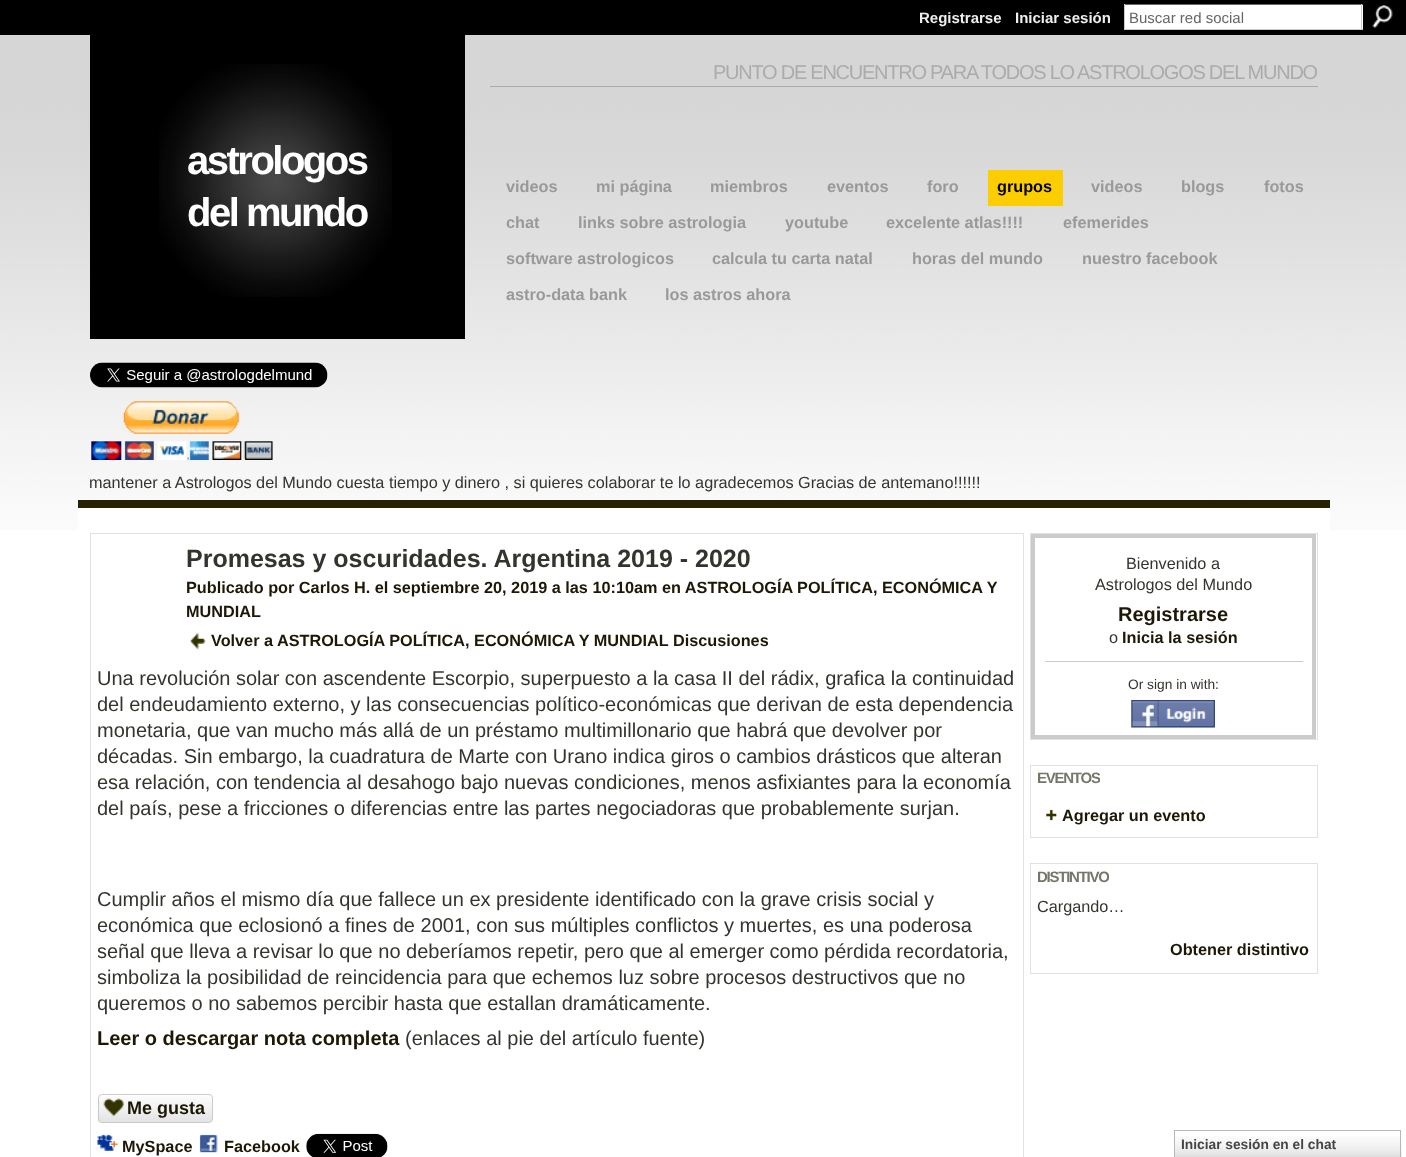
<svg xmlns="http://www.w3.org/2000/svg" width="1406" height="1157" viewBox="0 0 1406 1157">
  <defs>
    <clipPath id="clip1"><rect x="98" y="660" width="918" height="423"/></clipPath>
    <clipPath id="clip2"><rect x="1038" y="770" width="62" height="18"/></clipPath>
    <clipPath id="clip3"><rect x="1038" y="868" width="71" height="18"/></clipPath>
  </defs>
  <rect width="100%" height="100%" fill="#ffffff"/>
  <image x="0" y="35" width="1406" height="495" href="img1.png"/>
  <rect x="0" y="0" width="1406" height="35" fill="#000000"/>
  <text x="919" y="23" font-family="Liberation Sans" font-size="15" font-weight="bold" fill="#eeeeee">Registrarse</text>
  <text x="1015" y="23" font-family="Liberation Sans" font-size="15" font-weight="bold" fill="#eeeeee">Iniciar sesión</text>
  <rect x="1125" y="5" width="238" height="24" fill="#ffffff"/>
  <rect x="1124" y="4" width="239" height="1" fill="#666666"/>
  <rect x="1361" y="4" width="1" height="26" fill="#cccccc"/>
  <rect x="1124" y="29" width="239" height="1" fill="#cccccc"/>
  <rect x="1124" y="4" width="1" height="26" fill="#cccccc"/>
  <text x="1129" y="23" font-family="Liberation Sans" font-size="15" fill="#666666">Buscar red social</text>
  <image x="1372" y="5" width="21" height="23" href="img2.png"/>
  <rect x="490" y="86" width="828" height="1" fill="#ababab"/>
  <text x="713" y="79" font-family="Liberation Sans" font-size="20" letter-spacing="-1.25" fill="#ababab">PUNTO DE ENCUENTRO PARA TODOS LO ASTROLOGOS DEL MUNDO</text>
  <rect x="90" y="35" width="375" height="304" fill="#000000"/>
  <image x="159" y="64" width="233" height="233" href="img3.png"/>
  <text x="187" y="174" font-family="Liberation Sans" font-size="40" font-weight="bold" letter-spacing="-2.5" fill="#ffffff">astrologos</text>
  <text x="187" y="226" font-family="Liberation Sans" font-size="40" font-weight="bold" letter-spacing="-2.5" fill="#ffffff">del mundo</text>
  <text x="506" y="192" font-family="Liberation Sans" font-size="16.25" font-weight="bold" fill="#999999">videos</text>
  <text x="596" y="192" font-family="Liberation Sans" font-size="16.25" font-weight="bold" fill="#999999">mi página</text>
  <text x="710" y="192" font-family="Liberation Sans" font-size="16.25" font-weight="bold" fill="#999999">miembros</text>
  <text x="827" y="192" font-family="Liberation Sans" font-size="16.25" font-weight="bold" fill="#999999">eventos</text>
  <text x="927" y="192" font-family="Liberation Sans" font-size="16.25" font-weight="bold" fill="#999999">foro</text>
  <rect x="988" y="170" width="75" height="36" fill="#fcce00"/>
  <text x="997" y="192" font-family="Liberation Sans" font-size="16.25" font-weight="bold" fill="#000000">grupos</text>
  <text x="1091" y="192" font-family="Liberation Sans" font-size="16.25" font-weight="bold" fill="#999999">videos</text>
  <text x="1181" y="192" font-family="Liberation Sans" font-size="16.25" font-weight="bold" fill="#999999">blogs</text>
  <text x="1264" y="192" font-family="Liberation Sans" font-size="16.25" font-weight="bold" fill="#999999">fotos</text>
  <text x="506" y="228" font-family="Liberation Sans" font-size="16.25" font-weight="bold" fill="#999999">chat</text>
  <text x="578" y="228" font-family="Liberation Sans" font-size="16.25" font-weight="bold" fill="#999999">links sobre astrologia</text>
  <text x="785" y="228" font-family="Liberation Sans" font-size="16.25" font-weight="bold" fill="#999999">youtube</text>
  <text x="886" y="228" font-family="Liberation Sans" font-size="16.25" font-weight="bold" fill="#999999">excelente atlas!!!!</text>
  <text x="1063" y="228" font-family="Liberation Sans" font-size="16.25" font-weight="bold" fill="#999999">efemerides</text>
  <text x="506" y="264" font-family="Liberation Sans" font-size="16.25" font-weight="bold" fill="#999999">software astrologicos</text>
  <text x="712" y="264" font-family="Liberation Sans" font-size="16.25" font-weight="bold" fill="#999999">calcula tu carta natal</text>
  <text x="912" y="264" font-family="Liberation Sans" font-size="16.25" font-weight="bold" fill="#999999">horas del mundo</text>
  <text x="1082" y="264" font-family="Liberation Sans" font-size="16.25" font-weight="bold" fill="#999999">nuestro facebook</text>
  <text x="506" y="300" font-family="Liberation Sans" font-size="16.25" font-weight="bold" fill="#999999">astro-data bank</text>
  <text x="665" y="300" font-family="Liberation Sans" font-size="16.25" font-weight="bold" fill="#999999">los astros ahora</text>
  <image x="90" y="362" width="238" height="26" href="img4.png"/>
  <image x="91" y="401" width="182" height="59" href="img5.png"/>
  <text x="89" y="488" font-family="Liberation Sans" font-size="16.25" fill="#34342e">mantener a Astrologos del Mundo cuesta tiempo y dinero , si quieres colaborar te lo agradecemos Gracias de antemano!!!!!!</text>
  <rect x="78" y="508" width="1252" height="22" fill="#ffffff"/>
  <rect x="78" y="500" width="1252" height="8" fill="#262005"/>
  <rect x="90.5" y="533.5" width="933" height="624" fill="none" stroke="#e1e1e1"/>
  <text x="186" y="567" font-family="Liberation Sans" font-size="25" font-weight="bold" fill="#34342e">Promesas y oscuridades. Argentina 2019 - 2020</text>
  <text x="186" y="593" font-family="Liberation Sans" font-size="16.25" font-weight="bold" fill="#1c1805">Publicado por Carlos H. el septiembre 20, 2019 a las 10:10am en ASTROLOGÍA POLÍTICA, ECONÓMICA Y</text>
  <text x="186" y="617" font-family="Liberation Sans" font-size="16.25" font-weight="bold" fill="#1c1805">MUNDIAL</text>
  <image x="190" y="632" width="16" height="18" href="img6.png"/>
  <text x="211" y="646" font-family="Liberation Sans" font-size="16.25" font-weight="bold" fill="#1c1805">Volver a ASTROLOGÍA POLÍTICA, ECONÓMICA Y MUNDIAL Discusiones</text>
  <text x="97" y="685" font-family="Liberation Sans" font-size="20" fill="#34342e">Una revolución solar con ascendente Escorpio, superpuesto a la casa II del rádix, grafica la continuidad</text>
  <g clip-path="url(#clip1)">
    <text x="97" y="711" font-family="Liberation Sans" font-size="20" fill="#34342e">del endeudamiento externo, y las consecuencias político-económicas que derivan de esta dependencia</text>
  </g>
  <text x="97" y="737" font-family="Liberation Sans" font-size="20" fill="#34342e">monetaria, que van mucho más allá de un préstamo multimillonario que habrá que devolver por</text>
  <g clip-path="url(#clip1)">
    <text x="97" y="763" font-family="Liberation Sans" font-size="20" fill="#34342e">décadas. Sin embargo, la cuadratura de Marte con Urano indica giros o cambios drásticos que alteran</text>
    <text x="97" y="789" font-family="Liberation Sans" font-size="20" fill="#34342e">esa relación, con tendencia al desahogo bajo nuevas condiciones, menos asfixiantes para la economía</text>
    <text x="97" y="815" font-family="Liberation Sans" font-size="20" fill="#34342e">del país, pese a fricciones o diferencias entre las partes negociadoras que probablemente surjan.</text>
  </g>
  <text x="97" y="906" font-family="Liberation Sans" font-size="20" fill="#34342e">Cumplir años el mismo día que fallece un ex presidente identificado con la grave crisis social y</text>
  <g clip-path="url(#clip1)">
    <text x="97" y="932" font-family="Liberation Sans" font-size="20" fill="#34342e">económica que eclosionó a fines de 2001, con sus múltiples conflictos y muertes, es una poderosa</text>
    <text x="97" y="958" font-family="Liberation Sans" font-size="20" fill="#34342e">señal que lleva a revisar lo que no deberíamos repetir, pero que al emerger como pérdida recordatoria,</text>
    <text x="97" y="984" font-family="Liberation Sans" font-size="20" fill="#34342e">simboliza la posibilidad de reincidencia para que echemos luz sobre procesos destructivos que no</text>
    <text x="97" y="1010" font-family="Liberation Sans" font-size="20" fill="#34342e">queremos o no sabemos percibir hasta que estallan dramáticamente.</text>
  </g>
  <text x="97" y="1045" font-family="Liberation Sans" font-size="20" font-weight="bold" fill="#1c1805">Leer o descargar nota completa</text>
  <text x="405" y="1045" font-family="Liberation Sans" font-size="20" fill="#34342e">(enlaces al pie del artículo fuente)</text>
  <image x="97" y="1096" width="116" height="27" href="img7.png"/>
  <rect x="98.5" y="1094.5" width="114" height="28" rx="3.5" fill="none" stroke="#cbcbcb"/>
  <image x="103" y="1098" width="21" height="19" href="img8.png"/>
  <text x="127" y="1114" font-family="Liberation Sans" font-size="18" font-weight="bold" fill="#1c1805">Me gusta</text>
  <image x="97" y="1134" width="21" height="17" href="img9.png"/>
  <text x="122" y="1152" font-family="Liberation Sans" font-size="16.25" font-weight="bold" fill="#1c1805">MySpace</text>
  <image x="199" y="1134" width="19" height="19" href="img10.png"/>
  <text x="224" y="1152" font-family="Liberation Sans" font-size="16.25" font-weight="bold" fill="#1c1805">Facebook</text>
  <image x="306" y="1133" width="82" height="24" href="img11.png"/>
  <rect x="1030.5" y="533.5" width="287" height="206" fill="none" stroke="#e1e1e1"/>
  <rect x="1033" y="536" width="281" height="201" fill="none" stroke="#cbcbcb" stroke-width="4"/>
  <text x="1126" y="569" font-family="Liberation Sans" font-size="16.25" fill="#34342e">Bienvenido a</text>
  <text x="1095" y="590" font-family="Liberation Sans" font-size="16.25" fill="#34342e">Astrologos del Mundo</text>
  <text x="1118" y="621" font-family="Liberation Sans" font-size="20" font-weight="bold" fill="#1c1805">Registrarse</text>
  <text x="1109" y="643" font-family="Liberation Sans" font-size="16.25" fill="#34342e">o</text>
  <text x="1122" y="643" font-family="Liberation Sans" font-size="16.25" font-weight="bold" fill="#1c1805">Inicia la sesión</text>
  <rect x="1045" y="661" width="258" height="1" fill="#cbcbcb"/>
  <text x="1128" y="689" font-family="Liberation Sans" font-size="13.75" fill="#34342e">Or sign in with:</text>
  <image x="1131" y="700" width="84" height="28" href="img12.png"/>
  <rect x="1030.5" y="765.5" width="287" height="72" fill="none" stroke="#e1e1e1"/>
  <g clip-path="url(#clip2)">
    <text x="1037" y="783" font-family="Liberation Sans" font-size="15" font-weight="bold" letter-spacing="-1.25" fill="#76756a">EVENTOS</text>
  </g>
  <image x="1046" y="809" width="11" height="12" href="img13.png"/>
  <text x="1062" y="821" font-family="Liberation Sans" font-size="16.25" font-weight="bold" fill="#1c1805">Agregar un evento</text>
  <rect x="1030.5" y="863.5" width="287" height="110" fill="none" stroke="#e1e1e1"/>
  <g clip-path="url(#clip3)">
    <text x="1037" y="882" font-family="Liberation Sans" font-size="15" font-weight="bold" letter-spacing="-1.25" fill="#76756a">DISTINTIVO</text>
  </g>
  <text x="1037" y="912" font-family="Liberation Sans" font-size="16.25" fill="#34342e">Cargando…</text>
  <text x="1170" y="955" font-family="Liberation Sans" font-size="16.25" font-weight="bold" fill="#1c1805">Obtener distintivo</text>
  <image x="1175" y="1136" width="227" height="21" href="img14.png"/>
  <rect x="1174.5" y="1130.5" width="226" height="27" fill="none" stroke="#b7b7b7"/>
  <text x="1181" y="1149" font-family="Liberation Sans" font-size="13.75" font-weight="bold" fill="#454545">Iniciar sesión en el chat</text>
</svg>
